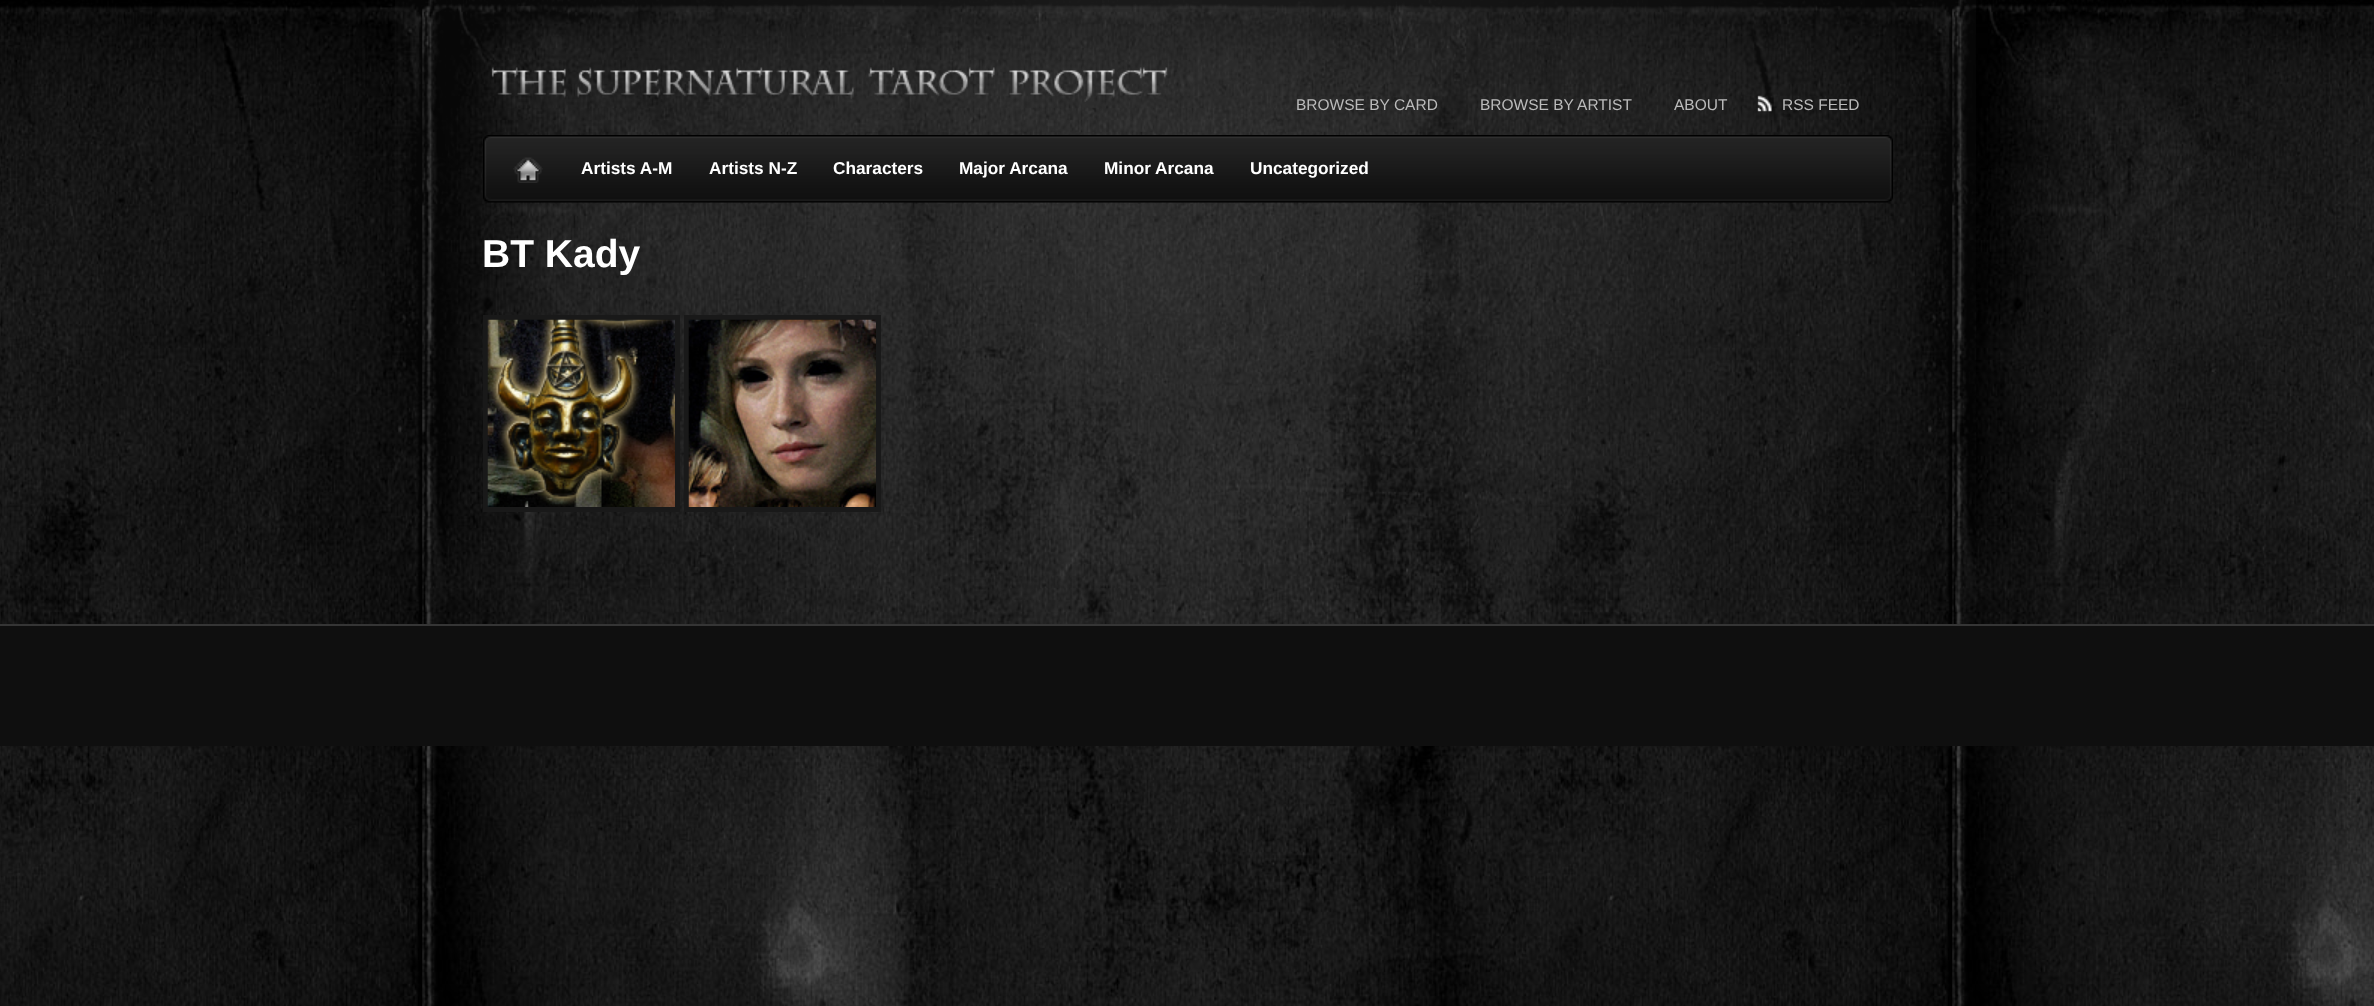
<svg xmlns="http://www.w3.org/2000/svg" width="2374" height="1006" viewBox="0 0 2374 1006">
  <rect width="100%" height="100%" fill="#ffffff"/>
  <image x="0" y="0" width="2374" height="1006" href="img1.png"/>
  <image x="395" y="0" width="1581" height="624" href="img2.png"/>
  <image x="491" y="67" width="677" height="35" href="img3.png"/>
  <image x="483" y="135" width="1410" height="68" href="img4.png"/>
  <text x="1296" y="110" font-family="Liberation Sans" font-size="15.5" fill="#bbbbbb">BROWSE BY CARD</text>
  <text x="1480" y="110" font-family="Liberation Sans" font-size="15.5" fill="#bbbbbb">BROWSE BY ARTIST</text>
  <text x="1674" y="110" font-family="Liberation Sans" font-size="15.5" fill="#bbbbbb">ABOUT</text>
  <image x="1757" y="95" width="15" height="17" href="img5.png"/>
  <text x="1782" y="110" font-family="Liberation Sans" font-size="15.5" fill="#bbbbbb">RSS FEED</text>
  <image x="513" y="157" width="30" height="26" href="img6.png"/>
  <text x="581" y="174" font-family="Liberation Sans" font-size="17.25" font-weight="bold" fill="#ffffff">Artists A-M</text>
  <text x="709" y="174" font-family="Liberation Sans" font-size="17.25" font-weight="bold" fill="#ffffff">Artists N-Z</text>
  <text x="833" y="174" font-family="Liberation Sans" font-size="17.25" font-weight="bold" fill="#ffffff">Characters</text>
  <text x="959" y="174" font-family="Liberation Sans" font-size="17.25" font-weight="bold" fill="#ffffff">Major Arcana</text>
  <text x="1104" y="174" font-family="Liberation Sans" font-size="17.25" font-weight="bold" fill="#ffffff">Minor Arcana</text>
  <text x="1250" y="174" font-family="Liberation Sans" font-size="17.25" font-weight="bold" fill="#ffffff">Uncategorized</text>
  <text x="482" y="267" font-family="Liberation Sans" font-size="39" font-weight="bold" fill="#ffffff">BT Kady</text>
  <rect x="483" y="315" width="197" height="197" fill="#191919"/>
  <image x="487" y="319" width="188" height="188" href="img7.png"/>
  <rect x="684" y="315" width="197" height="197" fill="#191919"/>
  <image x="688" y="319" width="188" height="188" href="img8.png"/>
  <rect x="0" y="626" width="2374" height="120" fill="#0f0f0f"/>
  <rect x="0" y="624" width="2374" height="2" fill="#353535"/>
</svg>
